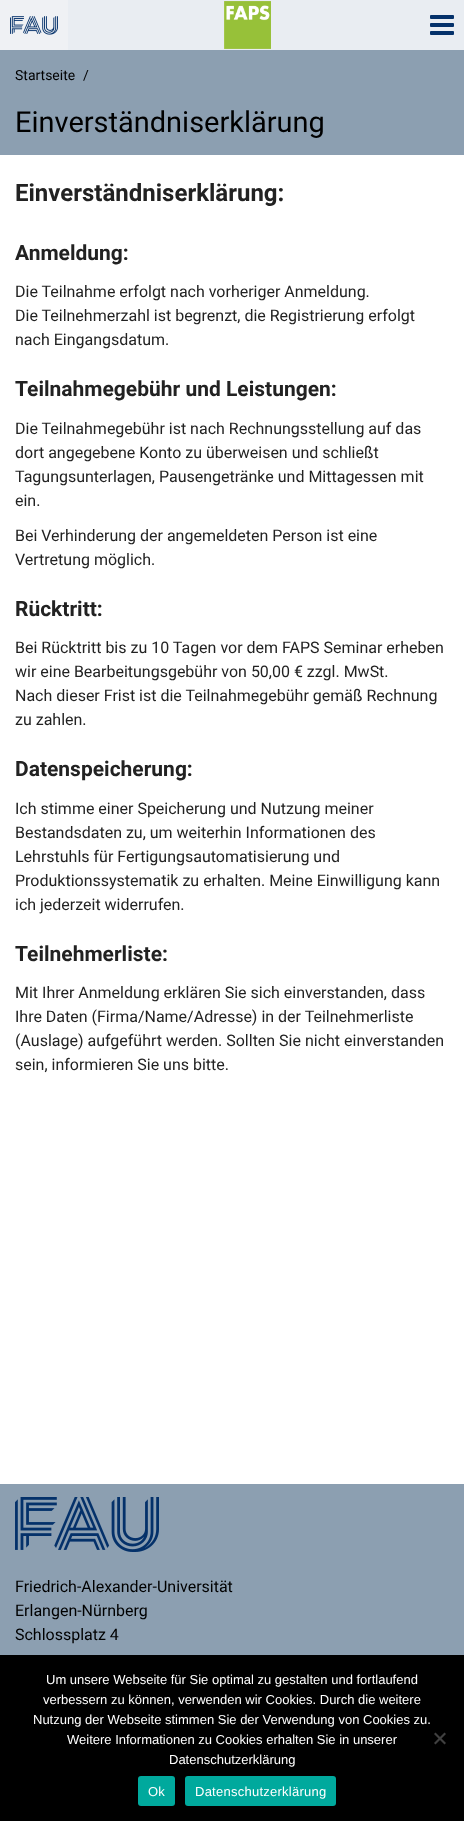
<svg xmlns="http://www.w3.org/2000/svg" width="464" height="1821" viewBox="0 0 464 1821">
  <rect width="100%" height="100%" fill="#ffffff"/>
  <rect x="68" y="0" width="396" height="50" fill="#e9edf2"/>
  <rect x="0" y="0" width="68" height="50" fill="#eff1f4"/>
  <image x="10" y="16" width="48" height="19" href="img1.png"/>
  <image x="224" y="1" width="47" height="48" href="img2.png"/>
  <image x="430" y="15" width="24" height="20" href="img3.png"/>
  <rect x="0" y="50" width="464" height="105" fill="#8c9fb1"/>
  <text x="15" y="80" font-family="Roboto" font-size="14" fill="#000000">Startseite</text>
  <text x="83" y="80" font-family="Roboto" font-size="14" fill="#000000">/</text>
  <text x="15" y="132" font-family="Roboto" font-size="29" fill="#000000">Einverständniserklärung</text>
  <text x="15" y="201" font-family="Roboto" font-size="24" font-weight="bold" fill="#222222">Einverständniserklärung:</text>
  <text x="15" y="260" font-family="Roboto" font-size="21" font-weight="bold" fill="#222222">Anmeldung:</text>
  <text x="15" y="297" font-family="Roboto" font-size="16" fill="#222222">Die Teilnahme erfolgt nach vorheriger Anmeldung.</text>
  <text x="15" y="321" font-family="Roboto" font-size="16" fill="#222222">Die Teilnehmerzahl ist begrenzt, die Registrierung erfolgt</text>
  <text x="15" y="345" font-family="Roboto" font-size="16" fill="#222222">nach Eingangsdatum.</text>
  <text x="15" y="396" font-family="Roboto" font-size="21" font-weight="bold" fill="#222222">Teilnahmegebühr und Leistungen:</text>
  <text x="15" y="434" font-family="Roboto" font-size="16" fill="#222222">Die Teilnahmegebühr ist nach Rechnungsstellung auf das</text>
  <text x="15" y="458" font-family="Roboto" font-size="16" fill="#222222">dort angegebene Konto zu überweisen und schließt</text>
  <text x="15" y="482" font-family="Roboto" font-size="16" fill="#222222">Tagungsunterlagen, Pausengetränke und Mittagessen mit</text>
  <text x="15" y="506" font-family="Roboto" font-size="16" fill="#222222">ein.</text>
  <text x="15" y="541" font-family="Roboto" font-size="16" fill="#222222">Bei Verhinderung der angemeldeten Person ist eine</text>
  <text x="15" y="565" font-family="Roboto" font-size="16" fill="#222222">Vertretung möglich.</text>
  <text x="15" y="616" font-family="Roboto" font-size="21" font-weight="bold" fill="#222222">Rücktritt:</text>
  <text x="15" y="653" font-family="Roboto" font-size="16" fill="#222222">Bei Rücktritt bis zu 10 Tagen vor dem FAPS Seminar erheben</text>
  <text x="15" y="677" font-family="Roboto" font-size="16" fill="#222222">wir eine Bearbeitungsgebühr von 50,00 € zzgl. MwSt.</text>
  <text x="15" y="701" font-family="Roboto" font-size="16" fill="#222222">Nach dieser Frist ist die Teilnahmegebühr gemäß Rechnung</text>
  <text x="15" y="725" font-family="Roboto" font-size="16" fill="#222222">zu zahlen.</text>
  <text x="15" y="776" font-family="Roboto" font-size="21" font-weight="bold" fill="#222222">Datenspeicherung:</text>
  <text x="15" y="814" font-family="Roboto" font-size="16" fill="#222222">Ich stimme einer Speicherung und Nutzung meiner</text>
  <text x="15" y="838" font-family="Roboto" font-size="16" fill="#222222">Bestandsdaten zu, um weiterhin Informationen des</text>
  <text x="15" y="862" font-family="Roboto" font-size="16" fill="#222222">Lehrstuhls für Fertigungsautomatisierung und</text>
  <text x="15" y="886" font-family="Roboto" font-size="16" fill="#222222">Produktionssystematik zu erhalten. Meine Einwilligung kann</text>
  <text x="15" y="910" font-family="Roboto" font-size="16" fill="#222222">ich jederzeit widerrufen.</text>
  <text x="15" y="961" font-family="Roboto" font-size="21" font-weight="bold" fill="#222222">Teilnehmerliste:</text>
  <text x="15" y="998" font-family="Roboto" font-size="16" fill="#222222">Mit Ihrer Anmeldung erklären Sie sich einverstanden, dass</text>
  <text x="15" y="1022" font-family="Roboto" font-size="16" fill="#222222">Ihre Daten (Firma/Name/Adresse) in der Teilnehmerliste</text>
  <text x="15" y="1046" font-family="Roboto" font-size="16" fill="#222222">(Auslage) aufgeführt werden. Sollten Sie nicht einverstanden</text>
  <text x="15" y="1070" font-family="Roboto" font-size="16" fill="#222222">sein, informieren Sie uns bitte.</text>
  <rect x="0" y="1484" width="464" height="171" fill="#8c9fb1"/>
  <image x="15" y="1497" width="144" height="55" href="img4.png"/>
  <text x="15" y="1592" font-family="Roboto" font-size="16" fill="#000000">Friedrich-Alexander-Universität</text>
  <text x="15" y="1616" font-family="Roboto" font-size="16" fill="#000000">Erlangen-Nürnberg</text>
  <text x="15" y="1640" font-family="Roboto" font-size="16" fill="#000000">Schlossplatz 4</text>
  <rect x="0" y="1655" width="464" height="166" fill="#000000"/>
  <text x="46" y="1684" font-family="Liberation Sans" font-size="13" fill="#ffffff">Um unsere Webseite für Sie optimal zu gestalten und fortlaufend</text>
  <text x="43" y="1704" font-family="Liberation Sans" font-size="13" fill="#ffffff">verbessern zu können, verwenden wir Cookies. Durch die weitere</text>
  <text x="33" y="1724" font-family="Liberation Sans" font-size="13" fill="#ffffff">Nutzung der Webseite stimmen Sie der Verwendung von Cookies zu.</text>
  <text x="67" y="1744" font-family="Liberation Sans" font-size="13" fill="#ffffff">Weitere Informationen zu Cookies erhalten Sie in unserer</text>
  <text x="169" y="1764" font-family="Liberation Sans" font-size="13" fill="#ffffff">Datenschutzerklärung</text>
  <path d="M444.5 1732.5L446 1734L435.5 1744.5L434 1743Z" fill="#404040"/>
  <path d="M434 1734L435.5 1732.5L446 1743L444.5 1744.5Z" fill="#404040"/>
  <rect x="138" y="1776" width="37" height="30" rx="3" fill="#00a99d"/>
  <text x="148" y="1796" font-family="Liberation Sans" font-size="13" letter-spacing="0.25" fill="#ffffff">Ok</text>
  <rect x="185" y="1776" width="151" height="30" rx="3" fill="#00a99d"/>
  <text x="195" y="1796" font-family="Liberation Sans" font-size="13" letter-spacing="0.25" fill="#ffffff">Datenschutzerklärung</text>
</svg>
